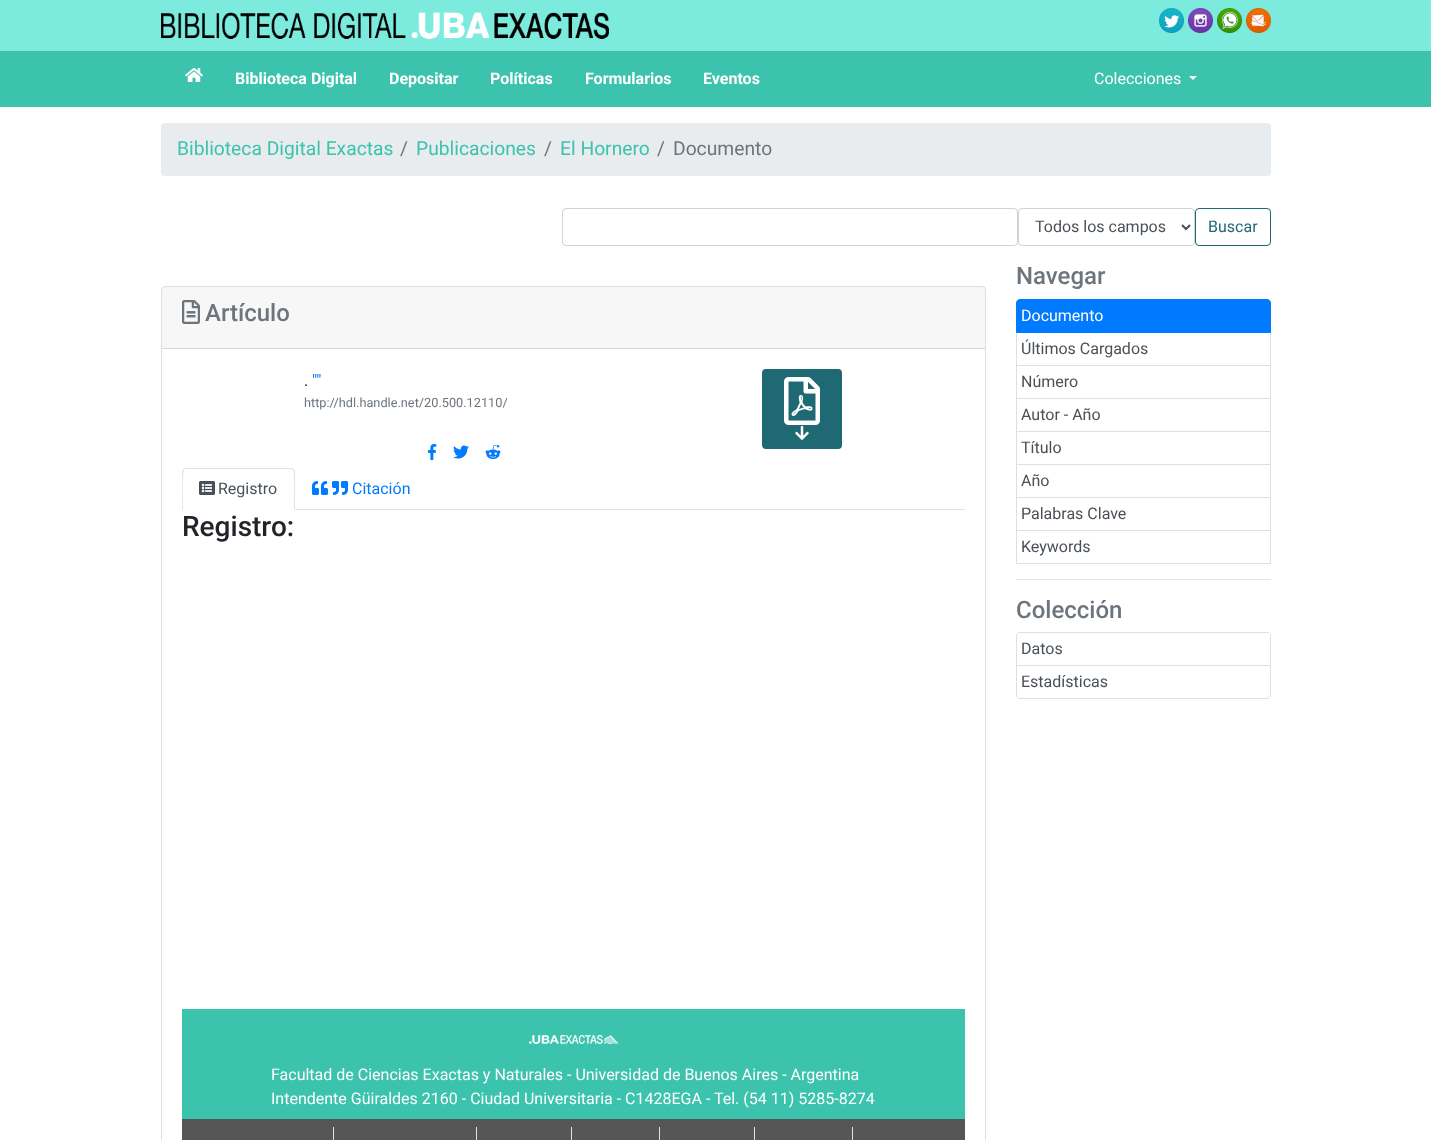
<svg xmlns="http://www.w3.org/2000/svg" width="1431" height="1140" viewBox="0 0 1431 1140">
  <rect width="100%" height="100%" fill="#ffffff"/>
  <rect x="0" y="0" width="1431" height="51" fill="#7ceadd"/>
  <image x="161" y="12" width="448" height="27" href="img1.png"/>
  <image x="1159" y="8" width="25" height="25" href="img2.png"/>
  <image x="1188" y="8" width="25" height="25" href="img3.png"/>
  <image x="1217" y="8" width="25" height="25" href="img4.png"/>
  <image x="1246" y="8" width="25" height="25" href="img5.png"/>
  <rect x="0" y="51" width="1431" height="56" fill="#3bc3ad"/>
  <image x="185" y="68" width="18" height="14" href="img6.png"/>
  <text x="235" y="84" font-family="Roboto" font-size="16" font-weight="bold" fill="#ffffff">Biblioteca Digital</text>
  <text x="389" y="84" font-family="Roboto" font-size="16" font-weight="bold" fill="#ffffff">Depositar</text>
  <text x="490" y="84" font-family="Roboto" font-size="16" font-weight="bold" fill="#ffffff">Políticas</text>
  <text x="585" y="84" font-family="Roboto" font-size="16" font-weight="bold" fill="#ffffff">Formularios</text>
  <text x="703" y="84" font-family="Roboto" font-size="16" font-weight="bold" fill="#ffffff">Eventos</text>
  <text x="1094" y="84" font-family="Roboto" font-size="16" fill="#ffffff">Colecciones</text>
  <path d="M1189 76H1197L1193 80Z" fill="#ffffff"/>
  <rect x="161" y="123" width="1110" height="53" rx="4" fill="#e9ecef"/>
  <text x="177" y="155" font-family="Roboto" font-size="19.25" fill="#3bc3ad">Biblioteca Digital Exactas</text>
  <text x="400" y="155" font-family="Roboto" font-size="19.25" fill="#6c757d">/</text>
  <text x="416" y="155" font-family="Roboto" font-size="19.25" fill="#3bc3ad">Publicaciones</text>
  <text x="544" y="155" font-family="Roboto" font-size="19.25" fill="#6c757d">/</text>
  <text x="560" y="155" font-family="Roboto" font-size="19.25" fill="#3bc3ad">El Hornero</text>
  <text x="657" y="155" font-family="Roboto" font-size="19.25" fill="#6c757d">/</text>
  <text x="673" y="155" font-family="Roboto" font-size="19.25" fill="#6c757d">Documento</text>
  <rect x="562.5" y="208.5" width="455" height="37" rx="3.5" fill="none" stroke="#ced4da"/>
  <rect x="1018.5" y="208.5" width="176" height="37" rx="3.5" fill="none" stroke="#ced4da"/>
  <path d="M1182 225L1186 229L1190 225" fill="none" stroke="#495057" stroke-width="2"/>
  <text x="1035" y="232" font-family="Roboto" font-size="16" fill="#495057">Todos los campos</text>
  <rect x="1195.5" y="208.5" width="75" height="37" rx="3.5" fill="none" stroke="#1f6974"/>
  <text x="1208" y="232" font-family="Roboto" font-size="16" fill="#1f6974">Buscar</text>
  <rect x="161.5" y="286.5" width="824" height="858" rx="3.5" fill="none" stroke="#dfdfdf"/>
  <rect x="162" y="287" width="823" height="61" fill="#000000" fill-opacity="0.03"/>
  <rect x="162" y="348" width="823" height="1" fill="#d8d8d8"/>
  <image x="182" y="300" width="18" height="24" href="img7.png"/>
  <text x="205" y="321" font-family="Roboto" font-size="24" font-weight="500" fill="#6c757d">Artículo</text>
  <text x="312" y="386" font-family="Roboto" font-size="16" fill="#007bff">""</text>
  <text x="304" y="386" font-family="Roboto" font-size="16" fill="#212529">.</text>
  <text x="304" y="407" font-family="Roboto" font-size="12.75" fill="#6c757d">http://hdl.handle.net/20.500.12110/</text>
  <image x="428" y="444" width="9" height="16" href="img8.png"/>
  <image x="453" y="445" width="16" height="14" href="img9.png"/>
  <image x="485" y="445" width="16" height="14" href="img10.png"/>
  <rect x="762" y="369" width="80" height="80" rx="4" fill="#1f6974"/>
  <image x="784" y="377" width="36" height="48" href="img11.png"/>
  <image x="795" y="426" width="14" height="14" href="img12.png"/>
  <rect x="295" y="509" width="670" height="1" fill="#dee2e6"/>
  <path d="M186 468L183 469L184 470L186 469H291L293 470L294 469L291 468Z" fill="#dee2e6"/>
  <path d="M295 510V472C295 471 294 470 294 469L293 470C295 472 294 504 294 509Z" fill="#dee2e6"/>
  <path d="M295 510L294 509H183L182 510Z" fill="#ffffff"/>
  <path d="M182 510L183 509C183 504 182 472 184 470L183 469L182 472Z" fill="#dee2e6"/>
  <image x="199" y="481" width="16" height="14" href="img13.png"/>
  <text x="218" y="494" font-family="Roboto" font-size="16" fill="#495057">Registro</text>
  <image x="312" y="481" width="16" height="14" href="img14.png"/>
  <image x="332" y="481" width="16" height="14" href="img15.png"/>
  <text x="352" y="494" font-family="Roboto" font-size="16" fill="#007bff">Citación</text>
  <text x="182" y="536" font-family="Roboto" font-size="28" font-weight="500" fill="#212529">Registro:</text>
  <rect x="182" y="1009" width="783" height="110" fill="#3bc3ad"/>
  <image x="529" y="1035" width="89" height="9" href="img16.png"/>
  <text x="271" y="1080" font-family="Roboto" font-size="16" fill="#ffffff">Facultad de Ciencias Exactas y Naturales - Universidad de Buenos Aires - Argentina</text>
  <text x="271" y="1104" font-family="Roboto" font-size="16" fill="#ffffff">Intendente Güiraldes 2160 - Ciudad Universitaria - C1428EGA - Tel. (54 11) 5285-8274</text>
  <rect x="182" y="1119" width="783" height="21" fill="#565656"/>
  <rect x="333" y="1127" width="1" height="13" fill="#dee2e6"/>
  <rect x="476" y="1127" width="1" height="13" fill="#dee2e6"/>
  <rect x="571" y="1127" width="1" height="13" fill="#dee2e6"/>
  <rect x="659" y="1127" width="1" height="13" fill="#dee2e6"/>
  <rect x="754" y="1127" width="1" height="13" fill="#dee2e6"/>
  <rect x="852" y="1127" width="1" height="13" fill="#dee2e6"/>
  <text x="1016" y="284" font-family="Roboto" font-size="24" font-weight="500" fill="#6c757d">Navegar</text>
  <rect x="1016.5" y="332.5" width="254" height="33" fill="none" stroke="#dfdfdf"/>
  <path d="M1020 299.5H1267C1269 299.5 1270.5 301 1270.5 303V332.5H1016.5V303C1016.5 301 1018 299.5 1020 299.5Z" fill="#007bff" stroke="#007bff"/>
  <text x="1021" y="321" font-family="Roboto" font-size="16" fill="#ffffff">Documento</text>
  <text x="1021" y="354" font-family="Roboto" font-size="16" fill="#495057">Últimos Cargados</text>
  <rect x="1016.5" y="365.5" width="254" height="33" fill="none" stroke="#dfdfdf"/>
  <text x="1021" y="387" font-family="Roboto" font-size="16" fill="#495057">Número</text>
  <rect x="1016.5" y="398.5" width="254" height="33" fill="none" stroke="#dfdfdf"/>
  <text x="1021" y="420" font-family="Roboto" font-size="16" fill="#495057">Autor - Año</text>
  <rect x="1016.5" y="431.5" width="254" height="33" fill="none" stroke="#dfdfdf"/>
  <text x="1021" y="453" font-family="Roboto" font-size="16" fill="#495057">Título</text>
  <rect x="1016.5" y="464.5" width="254" height="33" fill="none" stroke="#dfdfdf"/>
  <text x="1021" y="486" font-family="Roboto" font-size="16" fill="#495057">Año</text>
  <rect x="1016.5" y="497.5" width="254" height="33" fill="none" stroke="#dfdfdf"/>
  <text x="1021" y="519" font-family="Roboto" font-size="16" fill="#495057">Palabras Clave</text>
  <rect x="1016.5" y="530.5" width="254" height="33" fill="none" stroke="#dfdfdf"/>
  <text x="1021" y="552" font-family="Roboto" font-size="16" fill="#495057">Keywords</text>
  <rect x="1016" y="579" width="255" height="1" fill="#e6e6e6"/>
  <text x="1016" y="618" font-family="Roboto" font-size="24" font-weight="500" fill="#6c757d">Colección</text>
  <path d="M1020 632.5H1267C1269 632.5 1270.5 634 1270.5 636V665.5H1016.5V636C1016.5 634 1018 632.5 1020 632.5Z" fill="none" stroke="#dfdfdf"/>
  <text x="1021" y="654" font-family="Roboto" font-size="16" fill="#495057">Datos</text>
  <path d="M1016.5 665.5H1270.5V695C1270.5 697 1269 698.5 1267 698.5H1020C1018 698.5 1016.5 697 1016.5 695Z" fill="#ffffff" stroke="#dfdfdf"/>
  <text x="1021" y="687" font-family="Roboto" font-size="16" fill="#495057">Estadísticas</text>
</svg>
